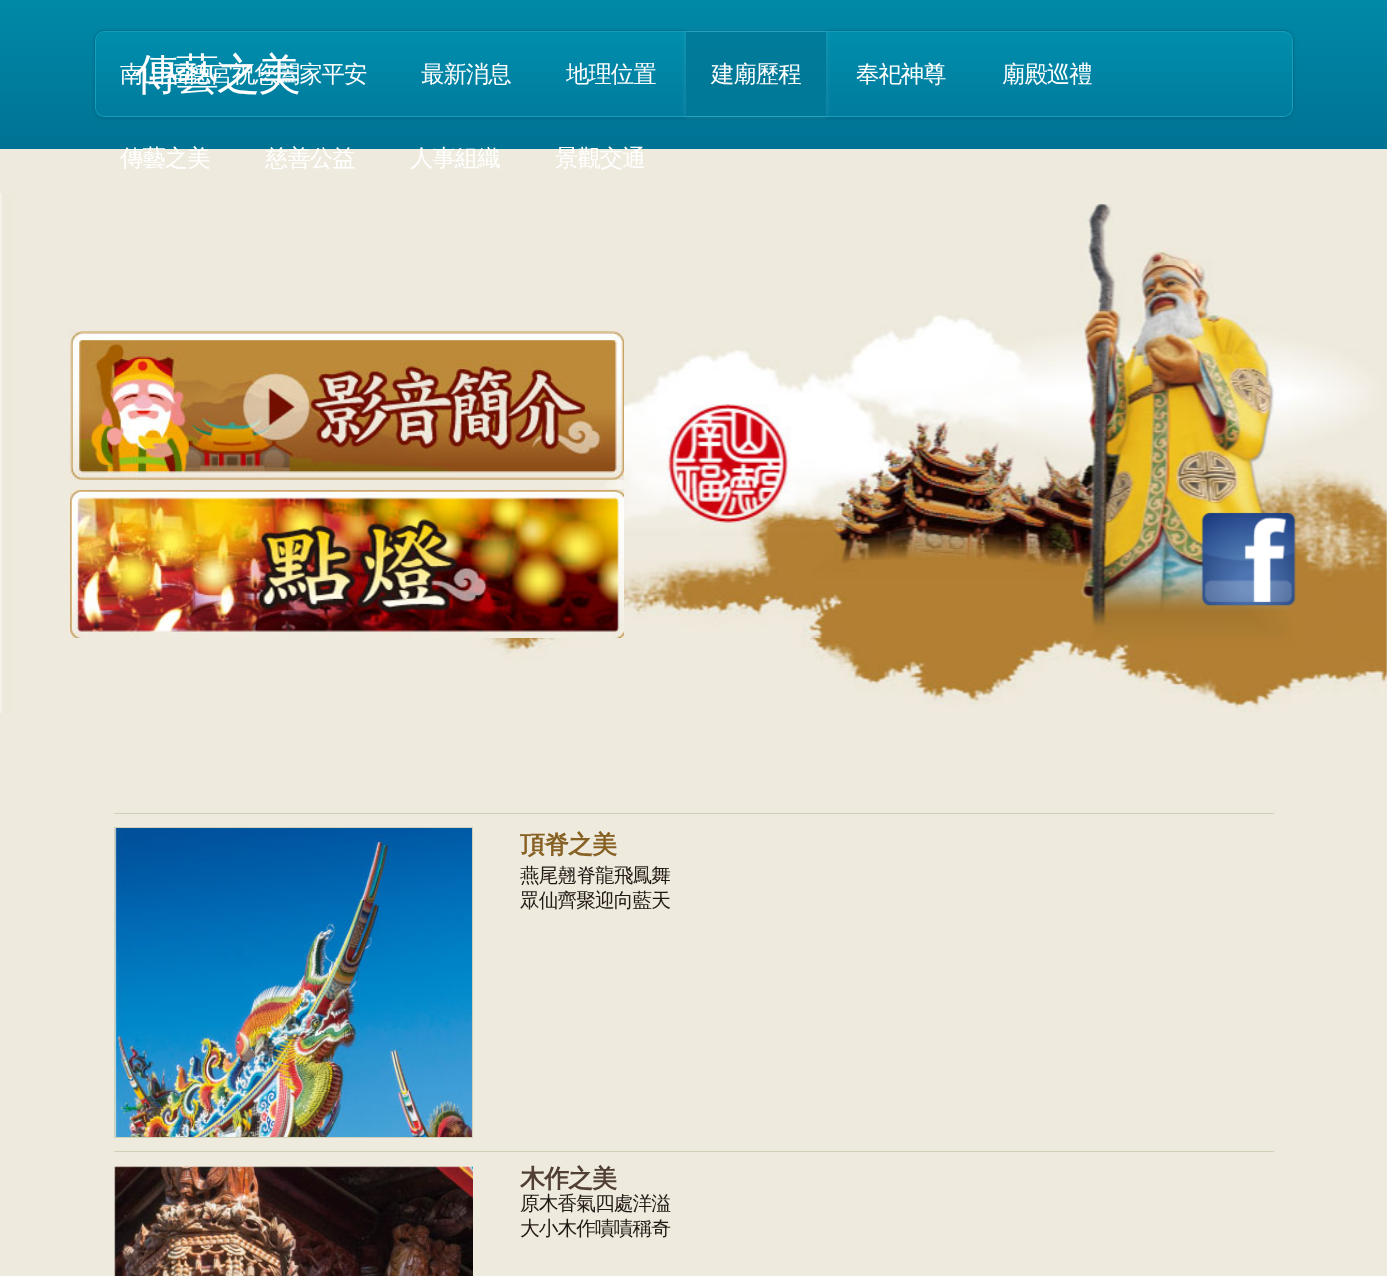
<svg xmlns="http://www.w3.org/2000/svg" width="1387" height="1276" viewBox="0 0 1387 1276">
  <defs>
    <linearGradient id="g1" gradientUnits="userSpaceOnUse" x1="0" y1="-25" x2="0" y2="149"><stop offset="0" stop-color="#008dab"/><stop offset="1" stop-color="#007294"/></linearGradient>
    <filter id="blur1" x="-50%" y="-200%" width="200%" height="500%"><feGaussianBlur stdDeviation="2"/></filter>
    <clipPath id="clip1"><rect x="94" y="30" width="1200" height="88" rx="10"/></clipPath>
    <linearGradient id="g2" gradientUnits="userSpaceOnUse" x1="95" y1="31" x2="95" y2="117"><stop offset="0" stop-color="#008ead"/><stop offset="1" stop-color="#007b9d"/></linearGradient>
    <filter id="blur2" x="-50%" y="-200%" width="200%" height="500%"><feGaussianBlur stdDeviation="2.5"/></filter>
    <linearGradient id="g3" gradientUnits="userSpaceOnUse" x1="686" y1="32" x2="686" y2="116"><stop offset="0" stop-color="#007b99"/><stop offset="1" stop-color="#007897"/></linearGradient>
  </defs>
  <rect width="100%" height="100%" fill="#eeeadd"/>
  <rect x="0" y="0" width="1387" height="149" fill="url(#g1)"/>
  <rect x="94" y="31" width="1200" height="88" rx="10" fill="#000000" fill-opacity="0.1" filter="url(#blur1)"/>
  <g clip-path="url(#clip1)">
    <rect x="94" y="31" width="1200" height="86" fill="url(#g2)"/>
  </g>
  <rect x="95.5" y="31.5" width="1197" height="85" rx="8.5" fill="none" stroke="#12a0bf"/>
  <rect x="94.5" y="30.5" width="1199" height="87" rx="9.5" fill="none" stroke="#006e8b"/>
  <text x="135" y="89" font-family="WenQuanYi Zen Hei" font-size="43" font-weight="500" letter-spacing="-2" fill="#ffffff">傳藝之美</text>
  <text x="120" y="82" font-family="WenQuanYi Zen Hei" font-size="23.4" font-weight="500" letter-spacing="-1" fill="#ffffff">南山福德宮祝您闔家平安</text>
  <text x="421" y="82" font-family="WenQuanYi Zen Hei" font-size="23.4" font-weight="500" letter-spacing="-1" fill="#ffffff">最新消息</text>
  <text x="566" y="82" font-family="WenQuanYi Zen Hei" font-size="23.4" font-weight="500" letter-spacing="-1" fill="#ffffff">地理位置</text>
  <rect x="685" y="31" width="142" height="86" fill="#ffffff" fill-opacity="0.1" filter="url(#blur2)"/>
  <rect x="686" y="32" width="140" height="84" fill="url(#g3)"/>
  <text x="711" y="82" font-family="WenQuanYi Zen Hei" font-size="23.4" font-weight="500" letter-spacing="-1" fill="#ffffff">建廟歷程</text>
  <text x="856" y="82" font-family="WenQuanYi Zen Hei" font-size="23.4" font-weight="500" letter-spacing="-1" fill="#ffffff">奉祀神尊</text>
  <text x="1002" y="82" font-family="WenQuanYi Zen Hei" font-size="23.4" font-weight="500" letter-spacing="-1" fill="#ffffff">廟殿巡禮</text>
  <text x="120" y="166" font-family="WenQuanYi Zen Hei" font-size="23.4" font-weight="500" letter-spacing="-1" fill="#ffffff">傳藝之美</text>
  <text x="265" y="166" font-family="WenQuanYi Zen Hei" font-size="23.4" font-weight="500" letter-spacing="-1" fill="#ffffff">慈善公益</text>
  <text x="410" y="166" font-family="WenQuanYi Zen Hei" font-size="23.4" font-weight="500" letter-spacing="-1" fill="#ffffff">人事組織</text>
  <text x="555" y="166" font-family="WenQuanYi Zen Hei" font-size="23.4" font-weight="500" letter-spacing="-1" fill="#ffffff">景觀交通</text>
  <image x="0" y="193" width="1387" height="520" href="img1.png"/>
  <image x="69" y="330" width="555" height="150" href="img2.png"/>
  <image x="69" y="489" width="555" height="149" href="img3.png"/>
  <image x="1201" y="512" width="95" height="94" href="img4.png"/>
  <rect x="114" y="813" width="1160" height="1" fill="#ced0b7"/>
  <rect x="114.5" y="827.5" width="358" height="310" fill="none" stroke="#ced0b7"/>
  <image x="115" y="828" width="357" height="309" href="img5.png"/>
  <text x="520" y="853" font-family="WenQuanYi Zen Hei" font-size="25" font-weight="bold" letter-spacing="-1" fill="#876123">頂脊之美</text>
  <text x="520" y="882" font-family="WenQuanYi Zen Hei" font-size="19.75" font-weight="500" letter-spacing="-1" fill="#221814">燕尾翹脊龍飛鳳舞</text>
  <text x="520" y="907" font-family="WenQuanYi Zen Hei" font-size="19.75" font-weight="500" letter-spacing="-1" fill="#221814">眾仙齊聚迎向藍天</text>
  <rect x="114" y="1151" width="1160" height="1" fill="#ced0b7"/>
  <image x="114" y="1166" width="359" height="110" href="img6.png"/>
  <text x="520" y="1187" font-family="WenQuanYi Zen Hei" font-size="25" font-weight="bold" letter-spacing="-1" fill="#513f34">木作之美</text>
  <text x="520" y="1210" font-family="WenQuanYi Zen Hei" font-size="19.75" font-weight="500" letter-spacing="-1" fill="#221814">原木香氣四處洋溢</text>
  <text x="520" y="1235" font-family="WenQuanYi Zen Hei" font-size="19.75" font-weight="500" letter-spacing="-1" fill="#221814">大小木作嘖嘖稱奇</text>
</svg>
